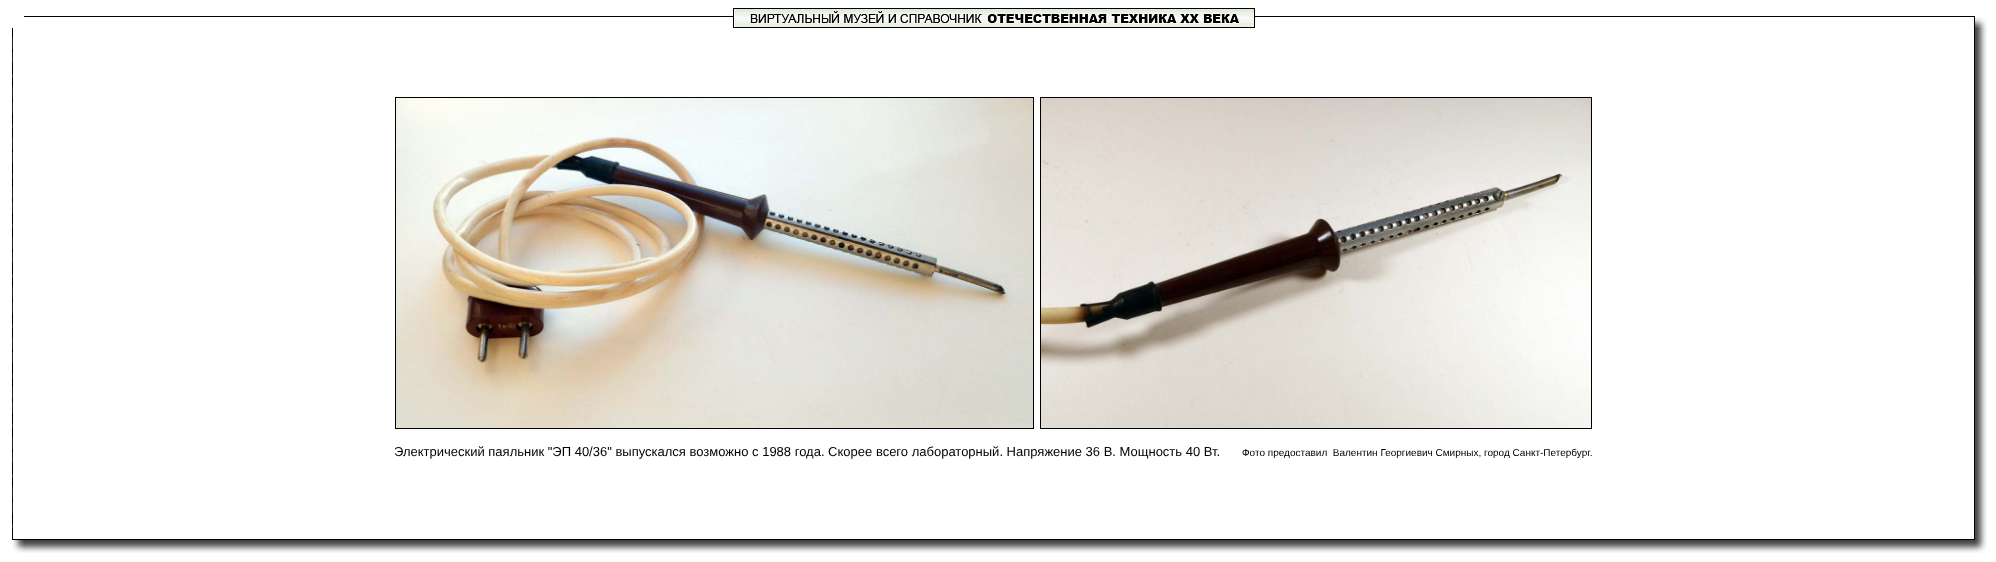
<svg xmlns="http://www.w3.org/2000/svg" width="1996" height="562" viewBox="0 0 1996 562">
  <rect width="100%" height="100%" fill="#ffffff"/>
  <rect x="24" y="16" width="1939" height="1" fill="#020202"/>
  <rect x="733.5" y="8.5" width="521" height="19" fill="none" stroke="#000000"/>
  <image x="734" y="9" width="520" height="18" href="img1.png"/>
  <image x="1963" y="16" width="24" height="12" href="img2.png"/>
  <image x="12" y="28" width="1" height="500" href="img3.png"/>
  <image x="1974" y="28" width="13" height="500" href="img4.png"/>
  <text x="1974" y="282" font-family="Liberation Sans" font-size="10" fill="#333333">i</text>
  <rect x="395.5" y="97.5" width="638" height="331" fill="none" stroke="#000000"/>
  <rect x="1040.5" y="97.5" width="551" height="331" fill="none" stroke="#000000"/>
  <image x="396" y="98" width="637" height="330" href="img5.png"/>
  <image x="1041" y="98" width="550" height="330" href="img6.png"/>
  <text x="394" y="456" font-family="Liberation Sans" font-size="13" fill="#000000">Электрический паяльник "ЭП 40/36" выпускался возможно с 1988 года. Скорее всего лабораторный. Напряжение 36 В. Мощность 40 Вт.</text>
  <text x="1242" y="456" font-family="Liberation Sans" font-size="10" fill="#000000" xml:space="preserve">Фото предоставил  Валентин Георгиевич Смирных, город Санкт-Петербург.</text>
  <image x="12" y="528" width="12" height="25" href="img7.png"/>
  <image x="24" y="539" width="1939" height="14" href="img8.png"/>
  <image x="1963" y="528" width="24" height="25" href="img9.png"/>
</svg>
